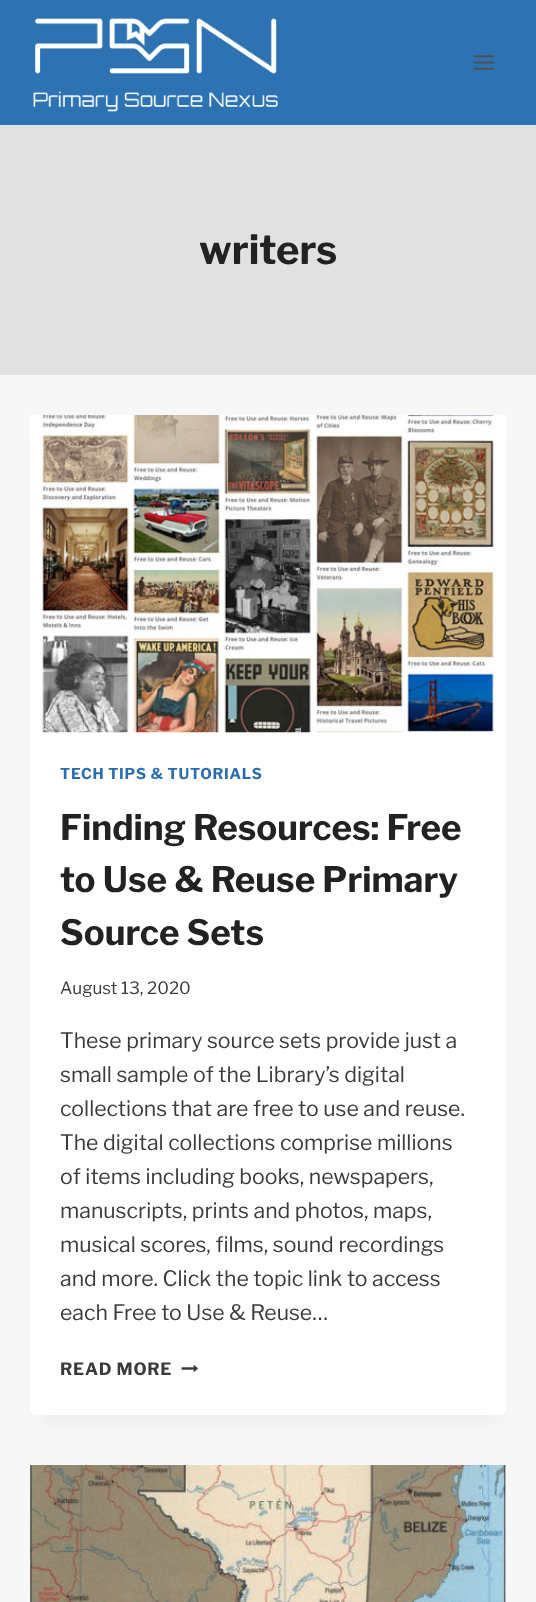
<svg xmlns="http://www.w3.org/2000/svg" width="536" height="1602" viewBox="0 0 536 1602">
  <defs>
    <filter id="blur1" x="-50%" y="-200%" width="200%" height="500%"><feGaussianBlur stdDeviation="9.5"/></filter>
  </defs>
  <rect width="100%" height="100%" fill="#f7f7f7"/>
  <rect x="0" y="0" width="536" height="125" fill="#2d72b3"/>
  <image x="33" y="18" width="245" height="94" href="img1.png"/>
  <image x="473" y="55" width="22" height="15" href="img2.png"/>
  <rect x="0" y="125" width="536" height="250" fill="#e1e1e1"/>
  <text x="199" y="264" font-family="Libre Franklin" font-size="40" font-weight="bold" fill="#222222">writers</text>
  <rect x="43" y="446" width="451" height="975" fill="#000000" fill-opacity="0.05" filter="url(#blur1)"/>
  <rect x="30" y="415" width="476" height="1000" rx="5" fill="#ffffff"/>
  <image x="30" y="415" width="476" height="318" href="img3.png"/>
  <text x="60" y="779" font-family="Libre Franklin" font-size="14.9" font-weight="bold" letter-spacing="0.75" fill="#2b6cb0">TECH TIPS &amp; TUTORIALS</text>
  <text x="60" y="840" font-family="Libre Franklin" font-size="35" font-weight="bold" fill="#222222">Finding Resources: Free</text>
  <text x="60" y="892" font-family="Libre Franklin" font-size="35" font-weight="bold" fill="#222222">to Use &amp; Reuse Primary</text>
  <text x="60" y="945" font-family="Libre Franklin" font-size="35" font-weight="bold" fill="#222222">Source Sets</text>
  <text x="60" y="994" font-family="Libre Franklin" font-size="17" fill="#3b3b3b">August 13, 2020</text>
  <text x="60" y="1048" font-family="Libre Franklin" font-size="21.25" fill="#3b3b3b">These primary source sets provide just a</text>
  <text x="60" y="1082" font-family="Libre Franklin" font-size="21.25" fill="#3b3b3b">small sample of the Library’s digital</text>
  <text x="60" y="1116" font-family="Libre Franklin" font-size="21.25" fill="#3b3b3b">collections that are free to use and reuse.</text>
  <text x="60" y="1150" font-family="Libre Franklin" font-size="21.25" fill="#3b3b3b">The digital collections comprise millions</text>
  <text x="60" y="1184" font-family="Libre Franklin" font-size="21.25" fill="#3b3b3b">of items including books, newspapers,</text>
  <text x="60" y="1218" font-family="Libre Franklin" font-size="21.25" fill="#3b3b3b">manuscripts, prints and photos, maps,</text>
  <text x="60" y="1252" font-family="Libre Franklin" font-size="21.25" fill="#3b3b3b">musical scores, films, sound recordings</text>
  <text x="60" y="1286" font-family="Libre Franklin" font-size="21.25" fill="#3b3b3b">and more. Click the topic link to access</text>
  <text x="60" y="1320" font-family="Libre Franklin" font-size="21.25" fill="#3b3b3b">each Free to Use &amp; Reuse…</text>
  <text x="60" y="1375" font-family="Libre Franklin" font-size="17" font-weight="bold" letter-spacing="0.75" fill="#3b3b3b">READ MORE</text>
  <image x="181" y="1365" width="17" height="7" href="img4.png"/>
  <image x="30" y="1465" width="476" height="137" href="img5.png"/>
</svg>
